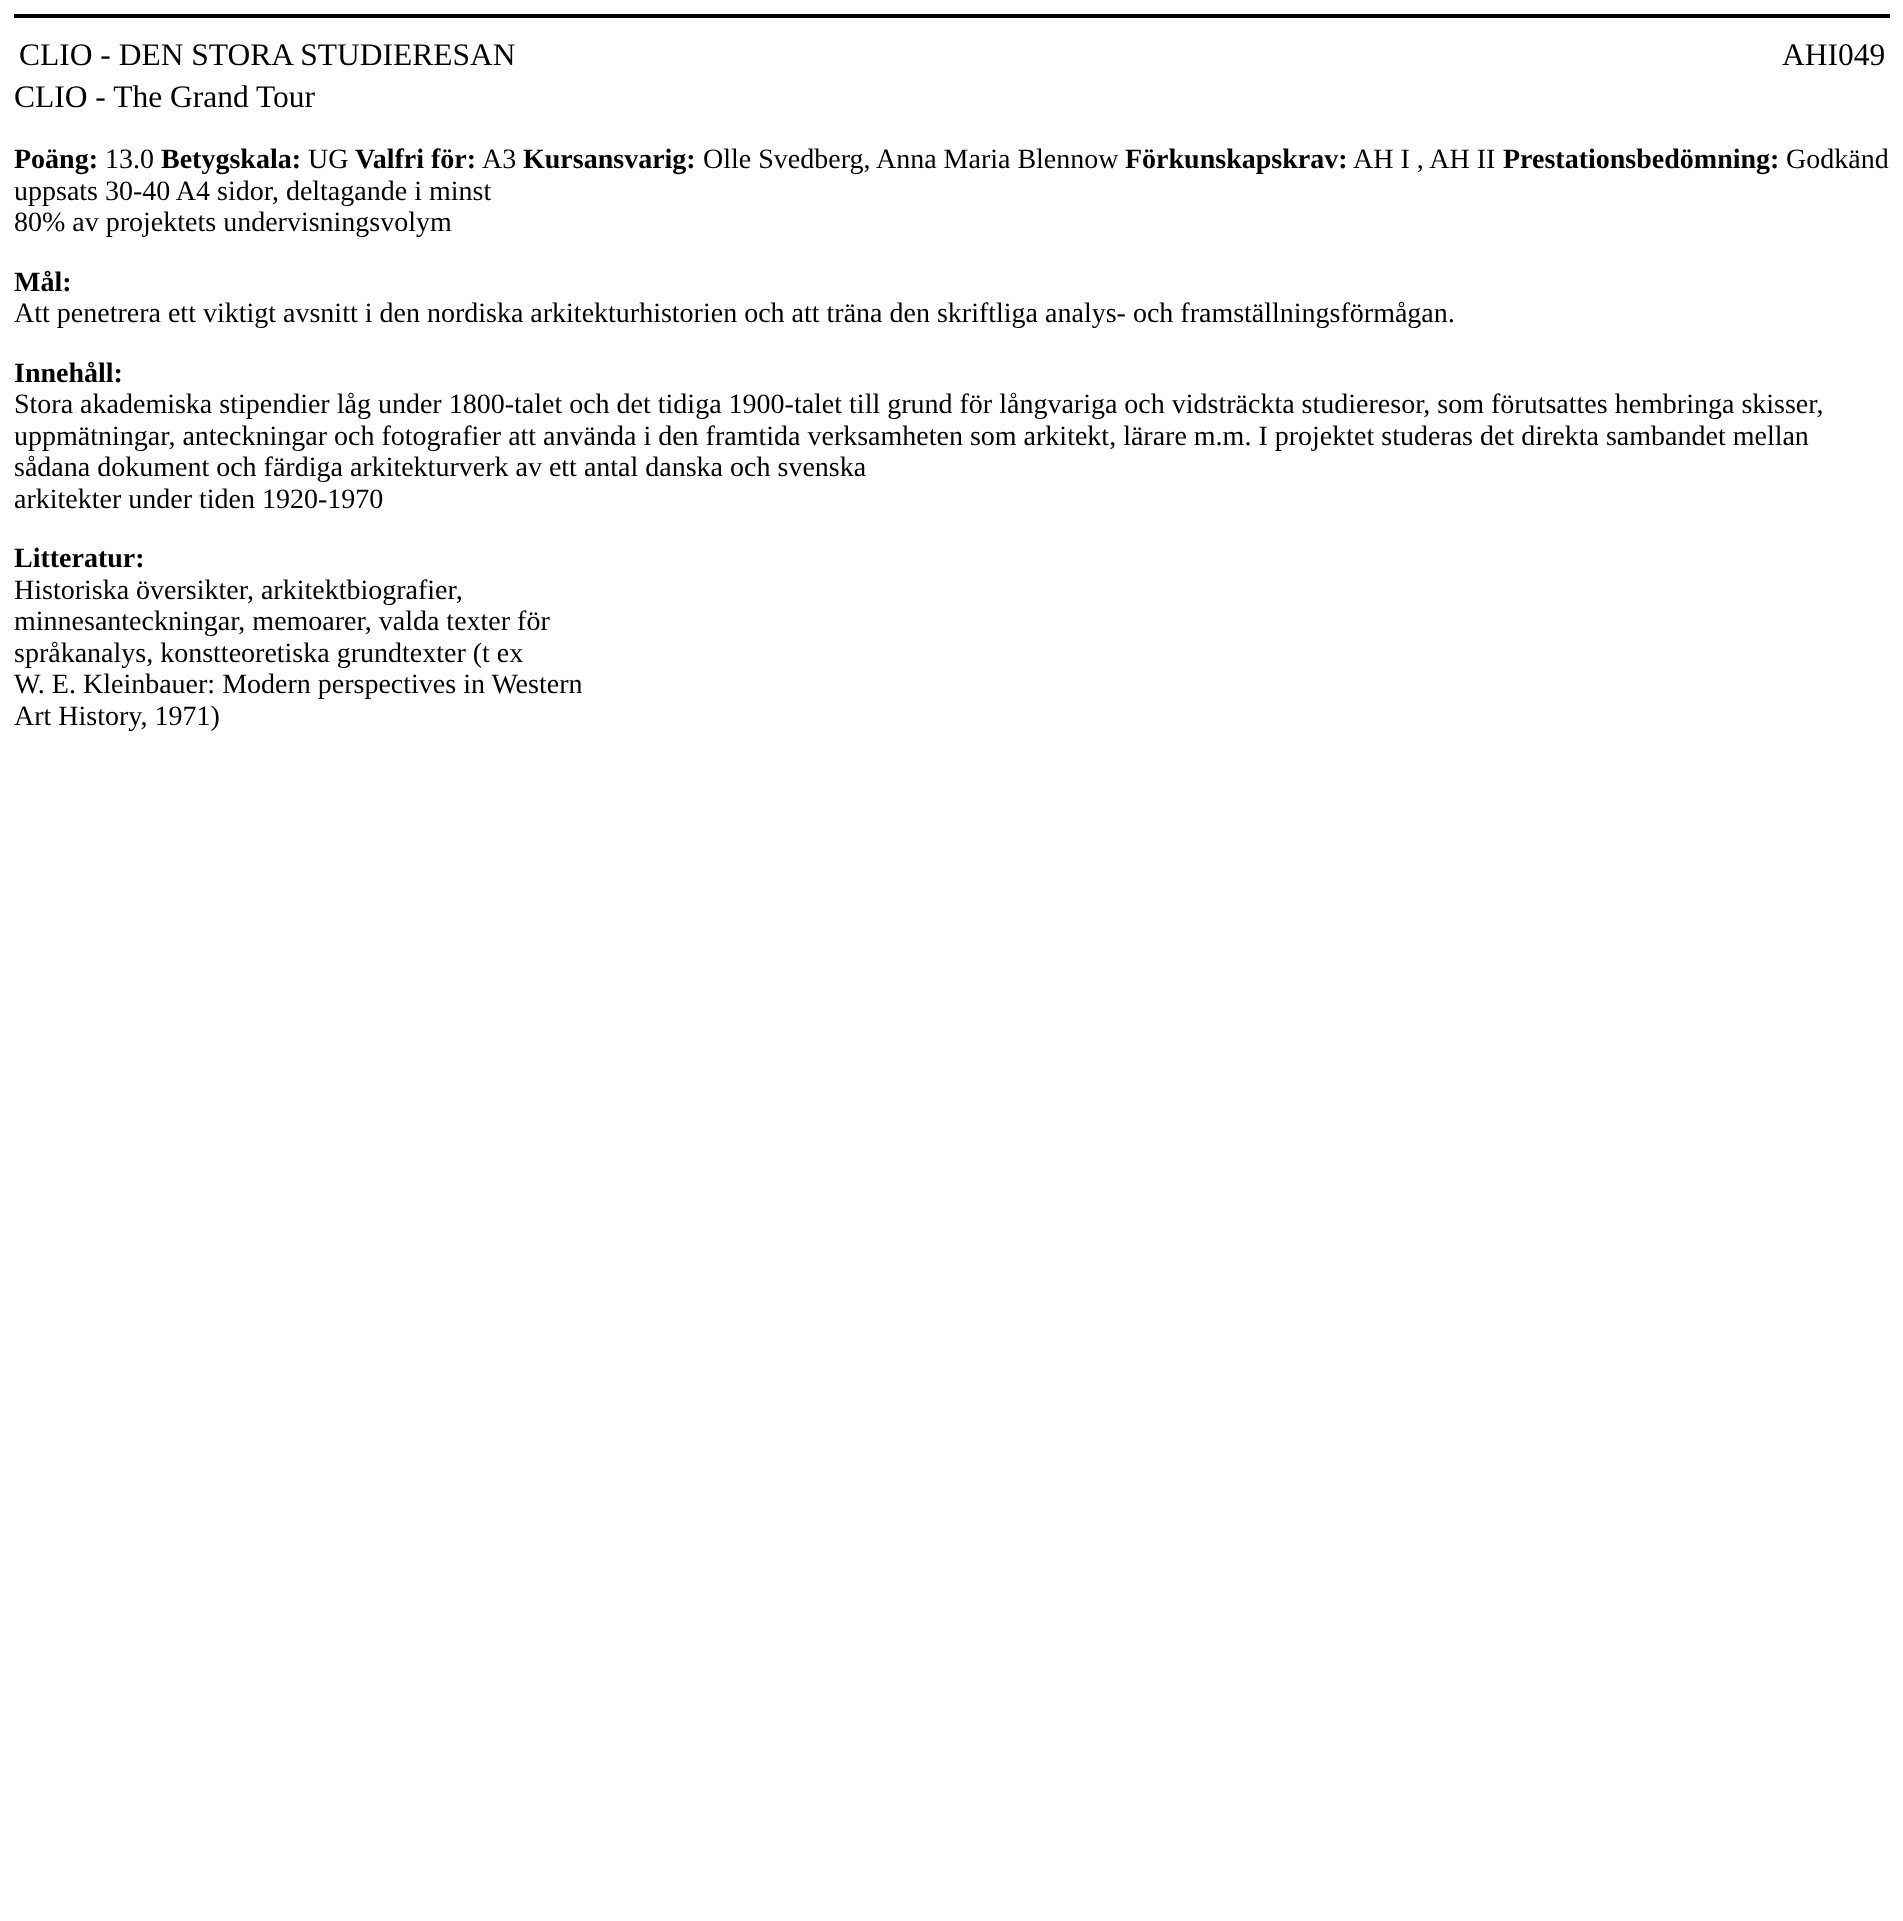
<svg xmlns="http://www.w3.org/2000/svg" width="1903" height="1921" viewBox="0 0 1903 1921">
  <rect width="100%" height="100%" fill="#ffffff"/>
  <rect x="14" y="14" width="1876" height="4" fill="#000000"/>
  <text x="19" y="65" font-family="Liberation Serif" font-size="31.5" fill="#000000">CLIO - DEN STORA STUDIERESAN</text>
  <text x="1782" y="65" font-family="Liberation Serif" font-size="31.5" fill="#000000">AHI049</text>
  <text x="14" y="107" font-family="Liberation Serif" font-size="31.5" fill="#000000">CLIO - The Grand Tour</text>
  <text x="14" y="168" font-family="Liberation Serif" font-size="28" font-weight="bold" fill="#000000">Poäng:</text>
  <text x="105" y="168" font-family="Liberation Serif" font-size="28" fill="#000000">13.0</text>
  <text x="161" y="168" font-family="Liberation Serif" font-size="28" font-weight="bold" fill="#000000">Betygskala:</text>
  <text x="308" y="168" font-family="Liberation Serif" font-size="28" fill="#000000">UG</text>
  <text x="355" y="168" font-family="Liberation Serif" font-size="28" font-weight="bold" fill="#000000">Valfri för:</text>
  <text x="482" y="168" font-family="Liberation Serif" font-size="28" fill="#000000">A3</text>
  <text x="523" y="168" font-family="Liberation Serif" font-size="28" font-weight="bold" fill="#000000">Kursansvarig:</text>
  <text x="703" y="168" font-family="Liberation Serif" font-size="28" fill="#000000">Olle Svedberg, Anna Maria Blennow</text>
  <text x="1125" y="168" font-family="Liberation Serif" font-size="28" font-weight="bold" fill="#000000">Förkunskapskrav:</text>
  <text x="1353" y="168" font-family="Liberation Serif" font-size="28" fill="#000000">AH I , AH II</text>
  <text x="1503" y="168" font-family="Liberation Serif" font-size="28" font-weight="bold" fill="#000000">Prestationsbedömning:</text>
  <text x="1786" y="168" font-family="Liberation Serif" font-size="28" fill="#000000">Godkänd</text>
  <text x="14" y="200" font-family="Liberation Serif" font-size="28" fill="#000000">uppsats 30-40 A4 sidor, deltagande i minst</text>
  <text x="14" y="231" font-family="Liberation Serif" font-size="28" fill="#000000">80% av projektets undervisningsvolym</text>
  <text x="14" y="291" font-family="Liberation Serif" font-size="28" font-weight="bold" fill="#000000">Mål:</text>
  <text x="14" y="322" font-family="Liberation Serif" font-size="28" fill="#000000">Att penetrera ett viktigt avsnitt i den nordiska arkitekturhistorien och att träna den skriftliga analys- och framställningsförmågan.</text>
  <text x="14" y="382" font-family="Liberation Serif" font-size="28" font-weight="bold" fill="#000000">Innehåll:</text>
  <text x="14" y="413" font-family="Liberation Serif" font-size="28" fill="#000000">Stora akademiska stipendier låg under 1800-talet och det tidiga 1900-talet till grund för långvariga och vidsträckta studieresor, som förutsattes hembringa skisser,</text>
  <text x="14" y="445" font-family="Liberation Serif" font-size="28" fill="#000000">uppmätningar, anteckningar och fotografier att använda i den framtida verksamheten som arkitekt, lärare m.m. I projektet studeras det direkta sambandet mellan</text>
  <text x="14" y="476" font-family="Liberation Serif" font-size="28" fill="#000000">sådana dokument och färdiga arkitekturverk av ett antal danska och svenska</text>
  <text x="14" y="508" font-family="Liberation Serif" font-size="28" fill="#000000">arkitekter under tiden 1920-1970</text>
  <text x="14" y="567" font-family="Liberation Serif" font-size="28" font-weight="bold" fill="#000000">Litteratur:</text>
  <text x="14" y="599" font-family="Liberation Serif" font-size="28" fill="#000000">Historiska översikter, arkitektbiografier,</text>
  <text x="14" y="630" font-family="Liberation Serif" font-size="28" fill="#000000">minnesanteckningar, memoarer, valda texter för</text>
  <text x="14" y="662" font-family="Liberation Serif" font-size="28" fill="#000000">språkanalys, konstteoretiska grundtexter (t ex</text>
  <text x="14" y="693" font-family="Liberation Serif" font-size="28" fill="#000000">W. E. Kleinbauer: Modern perspectives in Western</text>
  <text x="14" y="725" font-family="Liberation Serif" font-size="28" fill="#000000">Art History, 1971)</text>
</svg>
